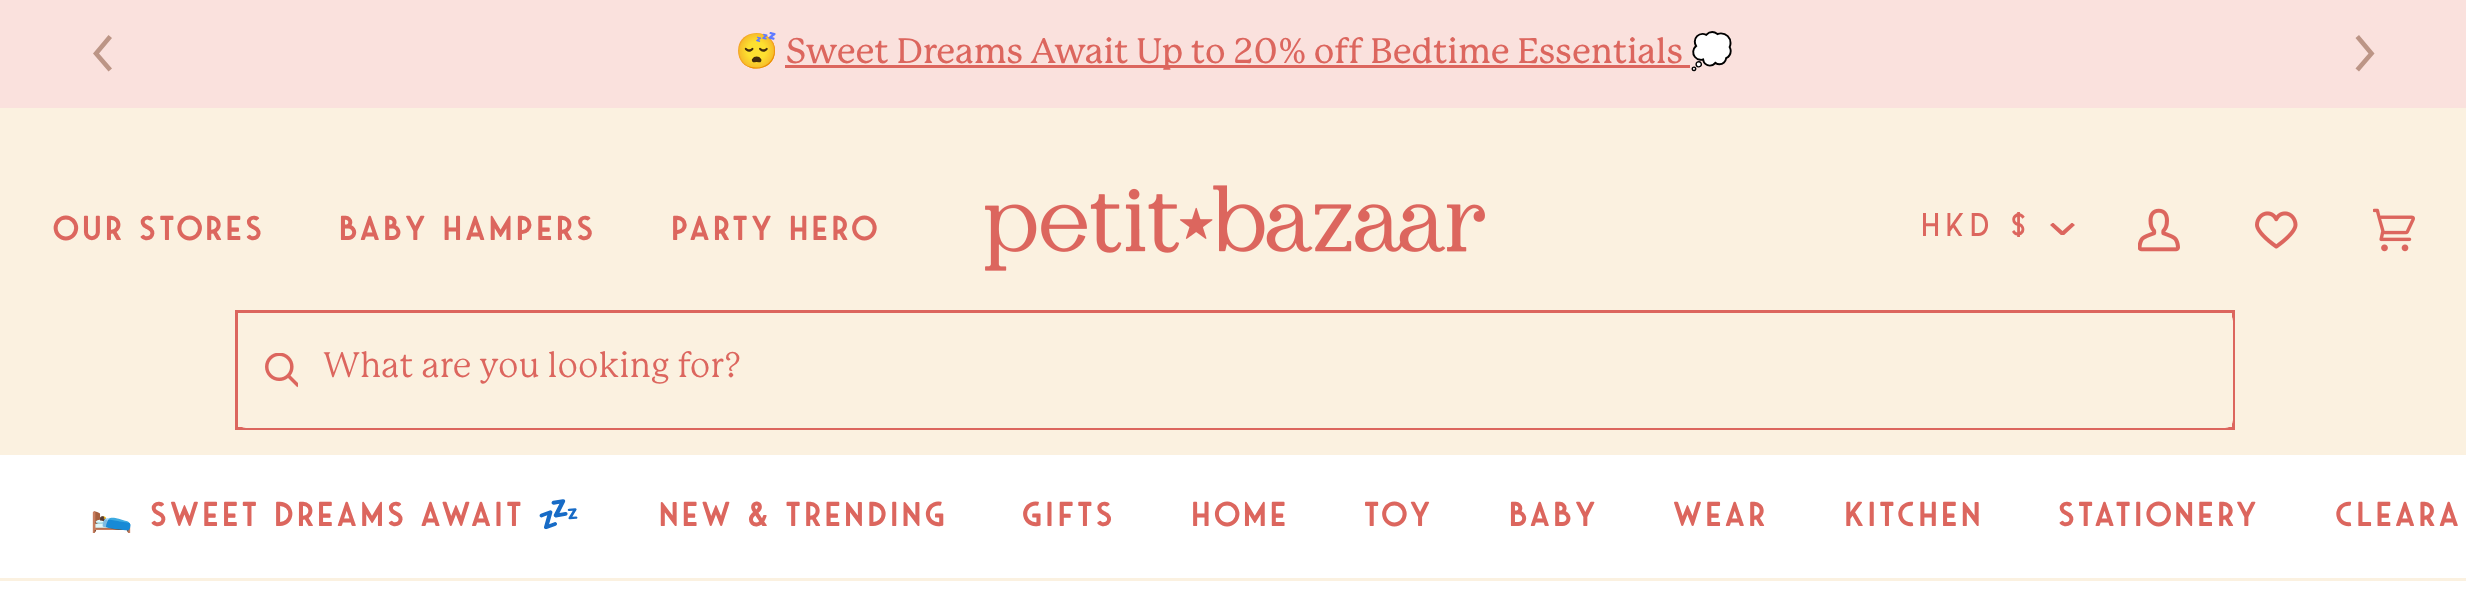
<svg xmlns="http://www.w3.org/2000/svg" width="2466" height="616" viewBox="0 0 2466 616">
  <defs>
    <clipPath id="clip1"><rect x="2050" y="223" width="25" height="12"/></clipPath>
    <clipPath id="clip2"><rect x="1923" y="205" width="115" height="48"/></clipPath>
  </defs>
  <rect width="100%" height="100%" fill="#ffffff"/>
  <rect x="0" y="0" width="2466" height="108" fill="#fae1dd"/>
  <path d="M93 53.5L108.5 71.5L112 68.5L99 53.5L112 38L108.5 35Z" fill="#bc9586"/>
  <text x="735" y="63" font-family="Noto Color Emoji" font-size="34.75" fill="#dc665e">😴</text>
  <rect x="785" y="65" width="905" height="3" fill="#dc665e"/>
  <text x="786" y="63" font-family="'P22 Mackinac'" font-size="34.75" font-weight="500" fill="#dc665e">Sweet Dreams Await Up to 20% off Bedtime Essentials</text>
  <text x="1690" y="63" font-family="Noto Color Emoji" font-size="34.75" fill="#dc665e">💭</text>
  <path d="M2374.5 53.5L2359 35L2355.5 38L2368.5 53.5L2355.5 68.5L2359 71.5Z" fill="#bc9586"/>
  <rect x="0" y="108" width="2466" height="347" fill="#fbf1e0"/>
  <rect x="0" y="578" width="2466" height="3" fill="#fbf1e0"/>
  <text x="53" y="240" font-family="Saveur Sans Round" font-size="34.5" font-weight="600" letter-spacing="3.5" fill="#dc665e">Our Stores</text>
  <text x="339" y="240" font-family="Saveur Sans Round" font-size="34.5" font-weight="600" letter-spacing="3.5" fill="#dc665e">Baby Hampers</text>
  <text x="671" y="240" font-family="Saveur Sans Round" font-size="34.5" font-weight="600" letter-spacing="3.5" fill="#dc665e">Party Hero</text>
  <image x="985" y="185" width="500" height="86" href="img1.png"/>
  <g clip-path="url(#clip1)">
    <path d="M2050 225L2053 222.5L2062.5 231L2072 222.5L2075 225L2062.5 236.5Z" fill="#dc665e" fill-rule="evenodd"/>
  </g>
  <g clip-path="url(#clip2)">
    <text x="1923" y="236" font-family="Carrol" font-size="33" font-weight="600" letter-spacing="6.5" fill="#dc665e">HKD $</text>
  </g>
  <image x="2138" y="208" width="42" height="44" href="img2.png"/>
  <image x="2255" y="211" width="43" height="38" href="img3.png"/>
  <image x="2373" y="208" width="42" height="44" href="img4.png"/>
  <rect x="236.5" y="311.5" width="1997" height="117" fill="none" stroke="#dc665e" stroke-width="3"/>
  <rect x="239.5" y="314.5" width="1992" height="112" rx="6.5" fill="#fbf1e0" stroke="#fbf1e0" stroke-width="3"/>
  <image x="265" y="353" width="33" height="35" href="img5.png"/>
  <text x="323" y="377" font-family="'P22 Mackinac'" font-size="34.75" fill="#dc665e">What are you looking for?</text>
  <text x="90" y="526" font-family="Noto Color Emoji" font-size="34.5" letter-spacing="3.5" fill="#dc665e">🛌</text>
  <text x="150" y="526" font-family="Saveur Sans Round" font-size="34.5" font-weight="600" letter-spacing="3.5" fill="#dc665e">Sweet Dreams Await</text>
  <text x="537" y="526" font-family="Noto Color Emoji" font-size="34.5" letter-spacing="3.5" fill="#dc665e">💤</text>
  <text x="659" y="526" font-family="Saveur Sans Round" font-size="34.5" font-weight="600" letter-spacing="3.5" fill="#dc665e">New &amp; Trending</text>
  <text x="1022" y="526" font-family="Saveur Sans Round" font-size="34.5" font-weight="600" letter-spacing="3.5" fill="#dc665e">Gifts</text>
  <text x="1191" y="526" font-family="Saveur Sans Round" font-size="34.5" font-weight="600" letter-spacing="3.5" fill="#dc665e">Home</text>
  <text x="1364" y="526" font-family="Saveur Sans Round" font-size="34.5" font-weight="600" letter-spacing="3.5" fill="#dc665e">Toy</text>
  <text x="1509" y="526" font-family="Saveur Sans Round" font-size="34.5" font-weight="600" letter-spacing="3.5" fill="#dc665e">Baby</text>
  <text x="1673" y="526" font-family="Saveur Sans Round" font-size="34.5" font-weight="600" letter-spacing="3.5" fill="#dc665e">Wear</text>
  <text x="1844" y="526" font-family="Saveur Sans Round" font-size="34.5" font-weight="600" letter-spacing="3.5" fill="#dc665e">Kitchen</text>
  <text x="2058" y="526" font-family="Saveur Sans Round" font-size="34.5" font-weight="600" letter-spacing="3.5" fill="#dc665e">Stationery</text>
  <text x="2335" y="526" font-family="Saveur Sans Round" font-size="34.5" font-weight="600" letter-spacing="3.5" fill="#dc665e">Cleara</text>
</svg>
